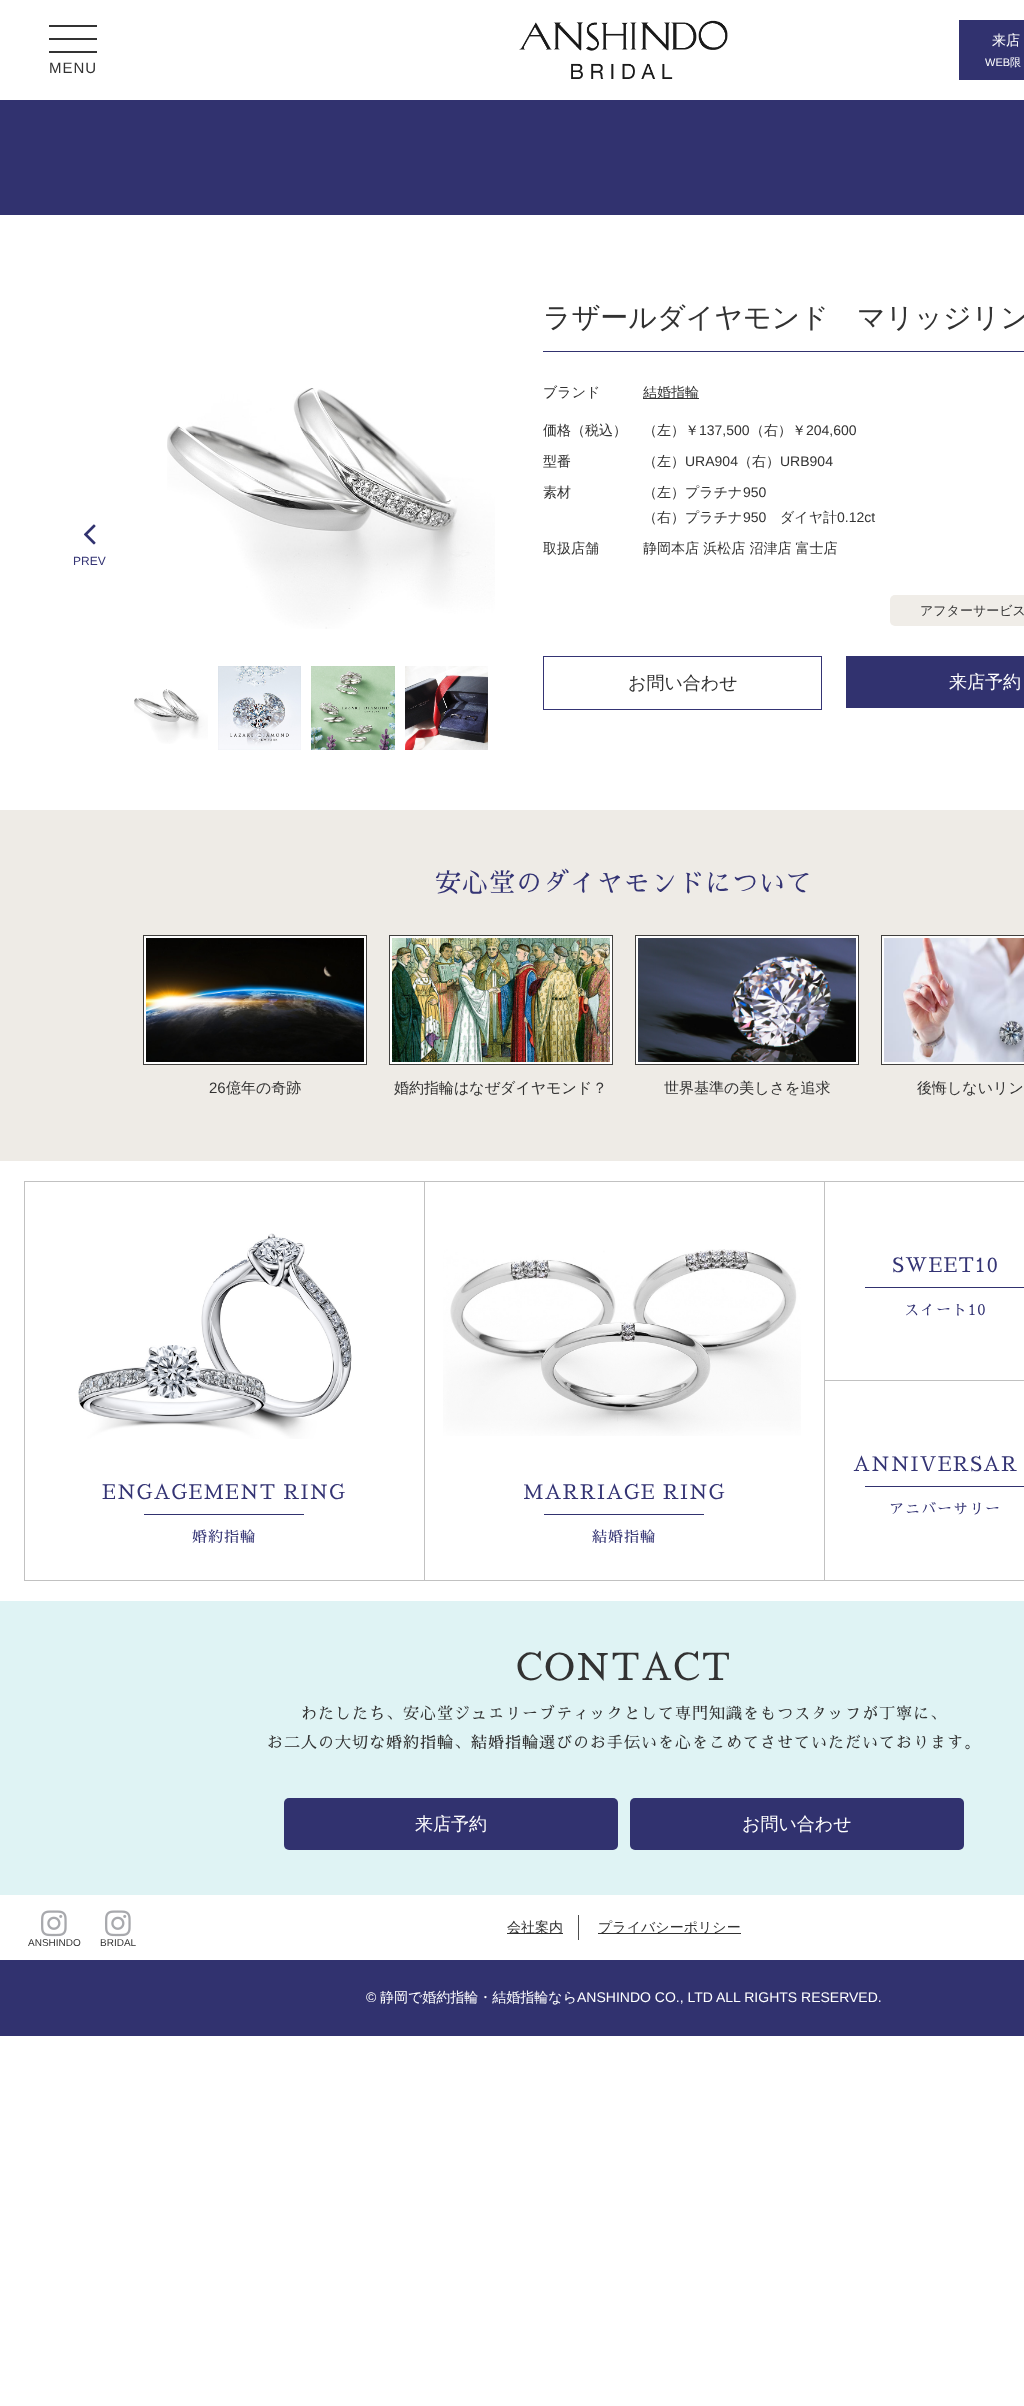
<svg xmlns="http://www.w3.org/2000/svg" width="1024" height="2406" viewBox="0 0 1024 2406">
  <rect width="100%" height="100%" fill="#ffffff"/>
  <rect x="49" y="25" width="48" height="2" fill="#333333"/>
  <rect x="49" y="38" width="48" height="2" fill="#333333"/>
  <rect x="49" y="51" width="48" height="2" fill="#333333"/>
  <text x="49" y="73" font-family="Liberation Sans" font-size="15" letter-spacing="1" fill="#323232">MENU</text>
  <image x="519" y="20" width="209" height="59" href="img1.png"/>
  <rect x="959" y="20" width="65" height="60" fill="#31326f"/>
  <text x="992" y="45" font-family="WenQuanYi Zen Hei" font-size="14" font-weight="500" fill="#ffffff">来店</text>
  <text x="985" y="66" font-family="Liberation Sans" font-size="11" fill="#ffffff">WEB</text>
  <text x="1010" y="66" font-family="WenQuanYi Zen Hei" font-size="11" font-weight="500" fill="#ffffff">限</text>
  <rect x="0" y="100" width="1024" height="115" fill="#31326f"/>
  <image x="83" y="524" width="13" height="21" href="img2.png"/>
  <text x="73" y="565" font-family="Liberation Sans" font-size="12" fill="#343474">PREV</text>
  <image x="167" y="388" width="328" height="241" href="img3.png"/>
  <image x="134" y="689" width="74" height="55" href="img4.png"/>
  <image x="218" y="666" width="83" height="84" href="img5.png"/>
  <image x="311" y="666" width="84" height="84" href="img6.png"/>
  <image x="405" y="666" width="83" height="84" href="img7.png"/>
  <rect x="543" y="351" width="481" height="1" fill="#31326f"/>
  <text x="543" y="327" font-family="WenQuanYi Zen Hei" font-size="28" font-weight="500" fill="#323232">ラザールダイヤモンド　マリッジリン</text>
  <text x="543" y="397" font-family="WenQuanYi Zen Hei" font-size="14" font-weight="500" fill="#323232">ブランド</text>
  <rect x="643" y="398" width="56" height="1" fill="#323232"/>
  <text x="643" y="397" font-family="WenQuanYi Zen Hei" font-size="14" font-weight="500" fill="#323232">結婚指輪</text>
  <text x="543" y="435" font-family="WenQuanYi Zen Hei" font-size="14" font-weight="500" fill="#323232">価格（税込）</text>
  <text x="643" y="435" font-family="WenQuanYi Zen Hei" font-size="14" font-weight="500" fill="#323232">（左）￥</text>
  <text x="699" y="435" font-family="Liberation Sans" font-size="14" fill="#323232">137,500</text>
  <text x="750" y="435" font-family="WenQuanYi Zen Hei" font-size="14" font-weight="500" fill="#323232">（右）￥</text>
  <text x="806" y="435" font-family="Liberation Sans" font-size="14" fill="#323232">204,600</text>
  <text x="543" y="466" font-family="WenQuanYi Zen Hei" font-size="14" font-weight="500" fill="#323232">型番</text>
  <text x="643" y="466" font-family="WenQuanYi Zen Hei" font-size="14" font-weight="500" fill="#323232">（左）</text>
  <text x="685" y="466" font-family="Liberation Sans" font-size="14" fill="#323232">URA904</text>
  <text x="738" y="466" font-family="WenQuanYi Zen Hei" font-size="14" font-weight="500" fill="#323232">（右）</text>
  <text x="780" y="466" font-family="Liberation Sans" font-size="14" fill="#323232">URB904</text>
  <text x="543" y="497" font-family="WenQuanYi Zen Hei" font-size="14" font-weight="500" fill="#323232">素材</text>
  <text x="643" y="497" font-family="WenQuanYi Zen Hei" font-size="14" font-weight="500" fill="#323232">（左）プラチナ</text>
  <text x="743" y="497" font-family="Liberation Sans" font-size="14" fill="#323232">950</text>
  <text x="643" y="522" font-family="WenQuanYi Zen Hei" font-size="14" font-weight="500" fill="#323232">（右）プラチナ</text>
  <text x="743" y="522" font-family="Liberation Sans" font-size="14" fill="#323232">950</text>
  <text x="780" y="522" font-family="WenQuanYi Zen Hei" font-size="14" font-weight="500" fill="#323232">ダイヤ計</text>
  <text x="837" y="522" font-family="Liberation Sans" font-size="14" fill="#323232">0.12ct</text>
  <text x="543" y="553" font-family="WenQuanYi Zen Hei" font-size="14" font-weight="500" fill="#323232">取扱店舗</text>
  <text x="643" y="553" font-family="WenQuanYi Zen Hei" font-size="14" font-weight="500" fill="#323232">静岡本店 浜松店 沼津店 富士店</text>
  <rect x="890" y="595" width="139" height="31" rx="5" fill="#f0ede8"/>
  <text x="920" y="615" font-family="WenQuanYi Zen Hei" font-size="13" font-weight="500" fill="#323232">アフターサービス</text>
  <rect x="543.5" y="656.5" width="278" height="53" fill="none" stroke="#343474"/>
  <text x="628" y="689" font-family="WenQuanYi Zen Hei" font-size="18" font-weight="500" fill="#323232">お問い合わせ</text>
  <rect x="846" y="656" width="178" height="52" fill="#31326f"/>
  <text x="949" y="688" font-family="WenQuanYi Zen Hei" font-size="18" font-weight="500" fill="#ffffff">来店予約</text>
  <rect x="0" y="810" width="1024" height="351" fill="#eeebe6"/>
  <text x="435" y="892" font-family="Sawarabi Mincho" font-size="26" letter-spacing="1" fill="#343474">安心堂のダイヤモンドについて</text>
  <rect x="143.5" y="935.5" width="223" height="129" fill="none" stroke="#403f3d"/>
  <image x="146" y="938" width="218" height="124" href="img8.png"/>
  <rect x="145" y="937" width="220" height="126" fill="none" stroke="#ffffff" stroke-width="2"/>
  <text x="209" y="1093" font-family="Liberation Sans" font-size="15" fill="#323232">26</text>
  <text x="226" y="1093" font-family="WenQuanYi Zen Hei" font-size="15" font-weight="500" fill="#323232">億年の奇跡</text>
  <rect x="389.5" y="935.5" width="223" height="129" fill="none" stroke="#403f3d"/>
  <image x="392" y="938" width="218" height="124" href="img9.png"/>
  <rect x="391" y="937" width="220" height="126" fill="none" stroke="#ffffff" stroke-width="2"/>
  <text x="394" y="1093" font-family="WenQuanYi Zen Hei" font-size="15" font-weight="500" fill="#323232">婚約指輪はなぜダイヤモンド？</text>
  <rect x="635.5" y="935.5" width="223" height="129" fill="none" stroke="#403f3d"/>
  <image x="638" y="938" width="218" height="124" href="img10.png"/>
  <rect x="637" y="937" width="220" height="126" fill="none" stroke="#ffffff" stroke-width="2"/>
  <text x="664" y="1093" font-family="WenQuanYi Zen Hei" font-size="15" font-weight="500" fill="#323232">世界基準の美しさを追求</text>
  <rect x="881.5" y="935.5" width="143" height="129" fill="none" stroke="#403f3d"/>
  <image x="884" y="938" width="140" height="124" href="img11.png"/>
  <rect x="883" y="937" width="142" height="126" fill="none" stroke="#ffffff" stroke-width="2"/>
  <text x="917" y="1093" font-family="WenQuanYi Zen Hei" font-size="15" font-weight="500" fill="#323232">後悔しないリン</text>
  <rect x="24" y="1181" width="800" height="1" fill="#c1c1c1"/>
  <rect x="24" y="1580" width="1000" height="1" fill="#c1c1c1"/>
  <rect x="24" y="1181" width="1" height="400" fill="#c1c1c1"/>
  <image x="78" y="1233" width="274" height="206" href="img12.png"/>
  <text x="102" y="1499" font-family="Sawarabi Mincho" font-size="20" letter-spacing="1" fill="#343474">ENGAGEMENT RING</text>
  <rect x="144" y="1514" width="160" height="1" fill="#31326f"/>
  <text x="192" y="1542" font-family="Sawarabi Mincho" font-size="15" letter-spacing="1" fill="#343474">婚約指輪</text>
  <rect x="424" y="1181" width="1" height="400" fill="#c1c1c1"/>
  <image x="443" y="1249" width="358" height="187" href="img13.png"/>
  <text x="523" y="1499" font-family="Sawarabi Mincho" font-size="20" letter-spacing="1" fill="#343474">MARRIAGE RING</text>
  <rect x="544" y="1514" width="160" height="1" fill="#31326f"/>
  <text x="592" y="1542" font-family="Sawarabi Mincho" font-size="15" letter-spacing="1" fill="#343474">結婚指輪</text>
  <rect x="824.5" y="1181.5" width="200" height="199" fill="none" stroke="#c1c1c1"/>
  <text x="892" y="1272" font-family="Sawarabi Mincho" font-size="20" letter-spacing="1" fill="#343474">SWEET10</text>
  <rect x="865" y="1287" width="159" height="1" fill="#31326f"/>
  <text x="904" y="1315" font-family="Sawarabi Mincho" font-size="15" letter-spacing="1" fill="#343474">スイート10</text>
  <rect x="824" y="1381" width="1" height="200" fill="#c1c1c1"/>
  <text x="853" y="1471" font-family="Sawarabi Mincho" font-size="20" letter-spacing="1" fill="#343474">ANNIVERSAR</text>
  <rect x="865" y="1486" width="159" height="1" fill="#31326f"/>
  <text x="889" y="1514" font-family="Sawarabi Mincho" font-size="15" letter-spacing="1" fill="#343474">アニバーサリー</text>
  <rect x="0" y="1601" width="1024" height="294" fill="#dff3f4"/>
  <text x="516" y="1680" font-family="Sawarabi Mincho" font-size="37" letter-spacing="1" fill="#323232">CONTACT</text>
  <text x="301" y="1719" font-family="Sawarabi Mincho" font-size="16" letter-spacing="1" fill="#323232">わたしたち、安心堂ジュエリーブティックとして専門知識をもつスタッフが丁寧に、</text>
  <text x="267" y="1748" font-family="Sawarabi Mincho" font-size="16" letter-spacing="1" fill="#323232">お二人の大切な婚約指輪、結婚指輪選びのお手伝いを心をこめてさせていただいております。</text>
  <rect x="284" y="1798" width="334" height="52" rx="5" fill="#31326f"/>
  <text x="415" y="1830" font-family="WenQuanYi Zen Hei" font-size="18" font-weight="500" fill="#ffffff">来店予約</text>
  <rect x="630" y="1798" width="334" height="52" rx="5" fill="#31326f"/>
  <text x="742" y="1830" font-family="WenQuanYi Zen Hei" font-size="18" font-weight="500" fill="#ffffff">お問い合わせ</text>
  <rect x="578" y="1915" width="1" height="25" fill="#4d4d4d"/>
  <rect x="507" y="1933" width="56" height="1" fill="#323232"/>
  <text x="507" y="1932" font-family="WenQuanYi Zen Hei" font-size="14" font-weight="500" fill="#323232">会社案内</text>
  <rect x="598" y="1933" width="143" height="1" fill="#323232"/>
  <text x="598" y="1932" font-family="WenQuanYi Zen Hei" font-size="14" font-weight="500" fill="#323232">プライバシーポリシー</text>
  <image x="41" y="1910" width="26" height="27" href="img14.png"/>
  <text x="28" y="1946" font-family="Liberation Sans" font-size="10" fill="#323232">ANSHINDO</text>
  <image x="105" y="1910" width="26" height="27" href="img14.png"/>
  <text x="100" y="1946" font-family="Liberation Sans" font-size="10" fill="#323232">BRIDAL</text>
  <rect x="0" y="1960" width="1024" height="76" fill="#31326f"/>
  <text x="366" y="2002" font-family="Liberation Sans" font-size="14" fill="#ffffff">©</text>
  <text x="380" y="2002" font-family="WenQuanYi Zen Hei" font-size="14" font-weight="500" fill="#ffffff">静岡で婚約指輪・結婚指輪なら</text>
  <text x="577" y="2002" font-family="Liberation Sans" font-size="14" fill="#ffffff">ANSHINDO CO., LTD ALL RIGHTS RESERVED.</text>
</svg>
